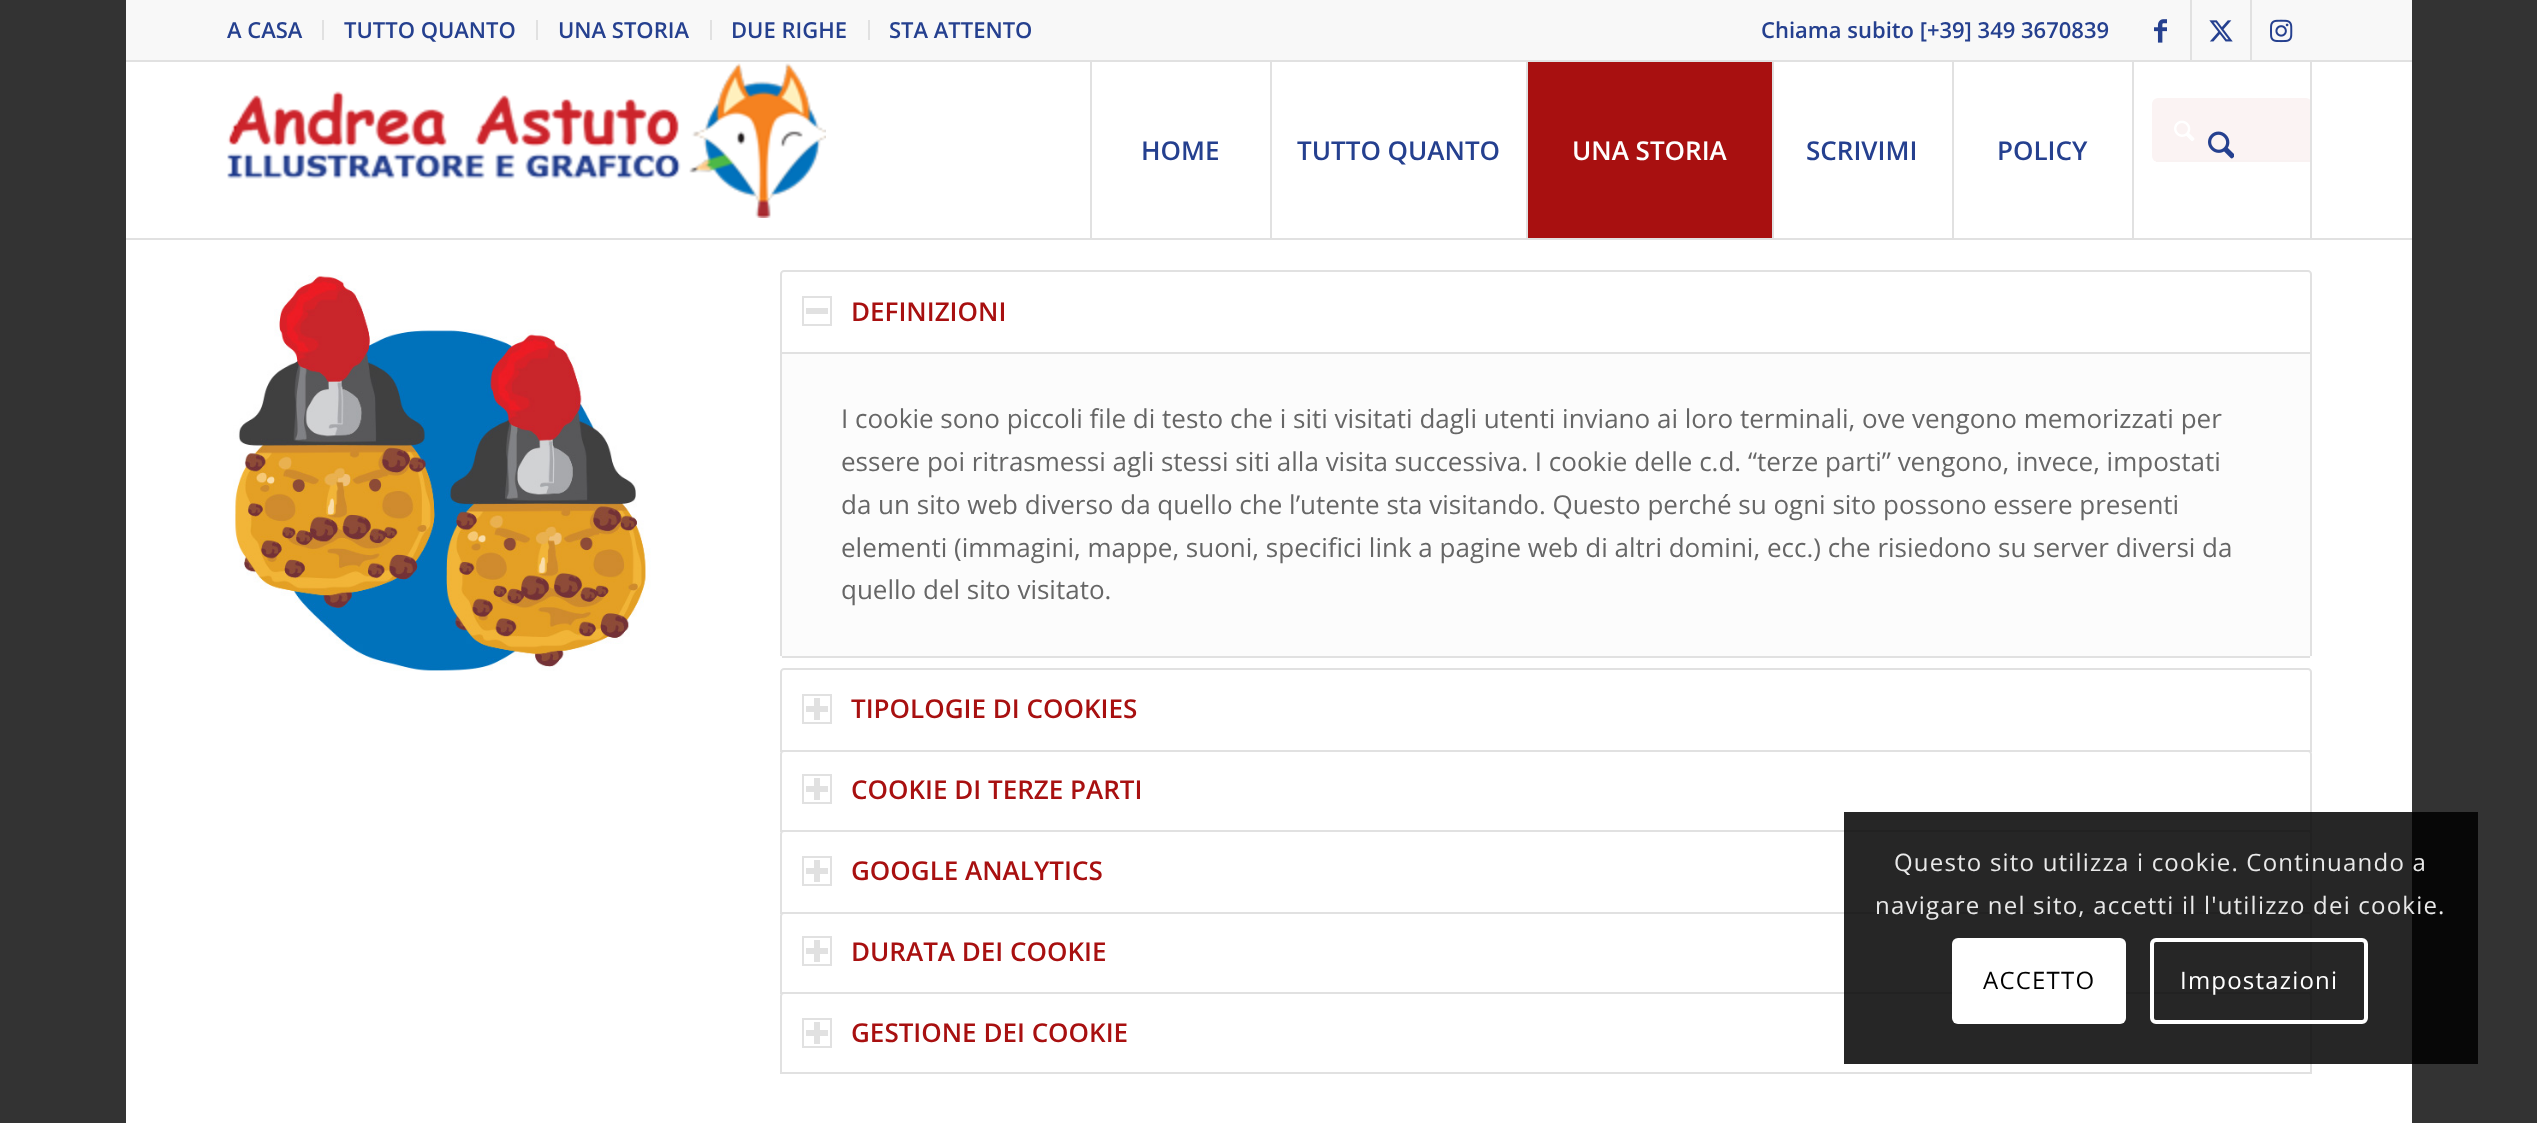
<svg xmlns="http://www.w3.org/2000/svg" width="2537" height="1123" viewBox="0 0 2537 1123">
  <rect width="100%" height="100%" fill="#333333"/>
  <rect x="126" y="0" width="2286" height="60" fill="#f8f8f8"/>
  <rect x="126" y="60" width="2286" height="2" fill="#e1e1e1"/>
  <rect x="322" y="20" width="2" height="20" fill="#e1e1e1"/>
  <text x="227" y="38" font-family="Open Sans" font-size="22" font-weight="600" fill="#25408f">A CASA</text>
  <rect x="536" y="20" width="2" height="20" fill="#e1e1e1"/>
  <text x="344" y="38" font-family="Open Sans" font-size="22" font-weight="600" fill="#25408f">TUTTO QUANTO</text>
  <rect x="710" y="20" width="2" height="20" fill="#e1e1e1"/>
  <text x="558" y="38" font-family="Open Sans" font-size="22" font-weight="600" fill="#25408f">UNA STORIA</text>
  <rect x="868" y="20" width="2" height="20" fill="#e1e1e1"/>
  <text x="731" y="38" font-family="Open Sans" font-size="22" font-weight="600" fill="#25408f">DUE RIGHE</text>
  <text x="889" y="38" font-family="Open Sans" font-size="22" font-weight="600" fill="#25408f">STA ATTENTO</text>
  <text x="1761" y="38" font-family="Open Sans" font-size="22" font-weight="600" fill="#25408f">Chiama subito [+39] 349 3670839</text>
  <rect x="2190" y="0" width="2" height="60" fill="#e1e1e1"/>
  <image x="2154" y="19" width="13" height="24" href="img1.png"/>
  <rect x="2250" y="0" width="2" height="60" fill="#e1e1e1"/>
  <image x="2209" y="20" width="24" height="22" href="img2.png"/>
  <image x="2270" y="19" width="23" height="24" href="img3.png"/>
  <rect x="126" y="238" width="2286" height="2" fill="#e1e1e1"/>
  <rect x="126" y="62" width="2286" height="176" fill="#ffffff"/>
  <image x="227" y="63" width="599" height="155" href="img4.png"/>
  <rect x="1090" y="62" width="2" height="176" fill="#e1e1e1"/>
  <text x="1141" y="160" font-family="Open Sans" font-size="26" font-weight="600" fill="#25408f">HOME</text>
  <rect x="1270" y="62" width="2" height="176" fill="#e1e1e1"/>
  <text x="1297" y="160" font-family="Open Sans" font-size="26" font-weight="600" fill="#25408f">TUTTO QUANTO</text>
  <rect x="1528" y="62" width="244" height="176" fill="#a81010"/>
  <rect x="1526" y="62" width="2" height="176" fill="#e1e1e1"/>
  <text x="1572" y="160" font-family="Open Sans" font-size="26" font-weight="600" fill="#ffffff">UNA STORIA</text>
  <rect x="1772" y="62" width="2" height="176" fill="#e1e1e1"/>
  <text x="1806" y="160" font-family="Open Sans" font-size="26" font-weight="600" fill="#25408f">SCRIVIMI</text>
  <rect x="1952" y="62" width="2" height="176" fill="#e1e1e1"/>
  <text x="1997" y="160" font-family="Open Sans" font-size="26" font-weight="600" fill="#25408f">POLICY</text>
  <rect x="2152" y="98" width="160" height="64" rx="6" fill="#fbf3f3"/>
  <rect x="2310" y="62" width="2" height="176" fill="#e1e1e1"/>
  <rect x="2132" y="62" width="2" height="176" fill="#e1e1e1"/>
  <image x="2208" y="131" width="26" height="28" href="img5.png"/>
  <rect x="126" y="240" width="2286" height="883" fill="#ffffff"/>
  <rect x="2156" y="160" width="154" height="2" fill="#f9f2f2"/>
  <image x="2174" y="120" width="21" height="22" href="img6.png"/>
  <image x="233" y="275" width="418" height="396" href="img7.png"/>
  <path d="M780 352H2312V654C2312 656 2310 658 2308 658H784C782 658 780 656 780 654Z" fill="#fcfcfc"/>
  <rect x="2310" y="352" width="2" height="304" fill="#e1e1e1"/>
  <rect x="780" y="352" width="2" height="304" fill="#e1e1e1"/>
  <path d="M784 271H2308C2309.5 271 2311 272.5 2311 274V353H781V274C781 272.5 782.5 271 784 271Z" fill="#ffffff" stroke="#e1e1e1" stroke-width="2"/>
  <rect x="803" y="297" width="28" height="28" fill="none" stroke="#e1e1e1" stroke-width="2"/>
  <rect x="806" y="308" width="22" height="6" fill="#e1e1e1"/>
  <text x="851" y="321" font-family="Open Sans" font-size="26" font-weight="600" fill="#a81010">DEFINIZIONI</text>
  <rect x="782" y="656" width="1528" height="2" fill="#e1e1e1"/>
  <text x="841" y="428" font-family="Open Sans" font-size="26" fill="#666666">I cookie sono piccoli file di testo che i siti visitati dagli utenti inviano ai loro terminali, ove vengono memorizzati per</text>
  <text x="841" y="471" font-family="Open Sans" font-size="26" fill="#666666">essere poi ritrasmessi agli stessi siti alla visita successiva. I cookie delle c.d. “terze parti” vengono, invece, impostati</text>
  <text x="841" y="514" font-family="Open Sans" font-size="26" fill="#666666">da un sito web diverso da quello che l’utente sta visitando. Questo perché su ogni sito possono essere presenti</text>
  <text x="841" y="557" font-family="Open Sans" font-size="26" fill="#666666">elementi (immagini, mappe, suoni, specifici link a pagine web di altri domini, ecc.) che risiedono su server diversi da</text>
  <text x="841" y="599" font-family="Open Sans" font-size="26" fill="#666666">quello del sito visitato.</text>
  <path d="M784 669H2308C2309.5 669 2311 670.5 2311 672V751H781V672C781 670.5 782.5 669 784 669Z" fill="none" stroke="#e1e1e1" stroke-width="2"/>
  <rect x="803" y="695" width="28" height="28" fill="none" stroke="#e1e1e1" stroke-width="2"/>
  <rect x="814" y="698" width="6" height="22" fill="#e1e1e1"/>
  <rect x="806" y="706" width="22" height="6" fill="#e1e1e1"/>
  <text x="851" y="718" font-family="Open Sans" font-size="26" font-weight="600" fill="#a81010">TIPOLOGIE DI COOKIES</text>
  <path d="M784 751H2308C2309.5 751 2311 752.5 2311 754V831H781V754C781 752.5 782.5 751 784 751Z" fill="#ffffff" stroke="#e1e1e1" stroke-width="2"/>
  <rect x="803" y="775" width="28" height="28" fill="none" stroke="#e1e1e1" stroke-width="2"/>
  <rect x="814" y="778" width="6" height="22" fill="#e1e1e1"/>
  <rect x="806" y="786" width="22" height="6" fill="#e1e1e1"/>
  <text x="851" y="799" font-family="Open Sans" font-size="26" font-weight="600" fill="#a81010">COOKIE DI TERZE PARTI</text>
  <path d="M784 831H2308C2309.5 831 2311 832.5 2311 834V913H781V834C781 832.5 782.5 831 784 831Z" fill="#ffffff" stroke="#e1e1e1" stroke-width="2"/>
  <rect x="803" y="857" width="28" height="28" fill="none" stroke="#e1e1e1" stroke-width="2"/>
  <rect x="814" y="860" width="6" height="22" fill="#e1e1e1"/>
  <rect x="806" y="868" width="22" height="6" fill="#e1e1e1"/>
  <text x="851" y="880" font-family="Open Sans" font-size="26" font-weight="600" fill="#a81010">GOOGLE ANALYTICS</text>
  <path d="M784 913H2308C2309.5 913 2311 914.5 2311 916V993H781V916C781 914.5 782.5 913 784 913Z" fill="#ffffff" stroke="#e1e1e1" stroke-width="2"/>
  <rect x="803" y="937" width="28" height="28" fill="none" stroke="#e1e1e1" stroke-width="2"/>
  <rect x="814" y="940" width="6" height="22" fill="#e1e1e1"/>
  <rect x="806" y="948" width="22" height="6" fill="#e1e1e1"/>
  <text x="851" y="961" font-family="Open Sans" font-size="26" font-weight="600" fill="#a81010">DURATA DEI COOKIE</text>
  <path d="M784 993H2308C2309.5 993 2311 994.5 2311 996V1073H781V996C781 994.5 782.5 993 784 993Z" fill="#ffffff" stroke="#e1e1e1" stroke-width="2"/>
  <rect x="803" y="1019" width="28" height="28" fill="none" stroke="#e1e1e1" stroke-width="2"/>
  <rect x="814" y="1022" width="6" height="22" fill="#e1e1e1"/>
  <rect x="806" y="1030" width="22" height="6" fill="#e1e1e1"/>
  <text x="851" y="1042" font-family="Open Sans" font-size="26" font-weight="600" fill="#a81010">GESTIONE DEI COOKIE</text>
  <rect x="1844" y="812" width="634" height="252" fill="#000000" fill-opacity="0.85"/>
  <text x="1894" y="871" font-family="Open Sans" font-size="24" letter-spacing="1.2" fill="#e9e9e9">Questo sito utilizza i cookie. Continuando a</text>
  <text x="1875" y="914" font-family="Open Sans" font-size="24" letter-spacing="1.2" fill="#e9e9e9">navigare nel sito, accetti il l'utilizzo dei cookie.</text>
  <rect x="1952" y="938" width="174" height="86" rx="6" fill="#ffffff"/>
  <text x="1983" y="989" font-family="Open Sans" font-size="24" letter-spacing="1.2" fill="#000000">ACCETTO</text>
  <rect x="2152" y="940" width="214" height="82" rx="4" fill="none" stroke="#ffffff" stroke-width="4"/>
  <text x="2180" y="989" font-family="Open Sans" font-size="24" letter-spacing="1.2" fill="#ffffff">Impostazioni</text>
</svg>
